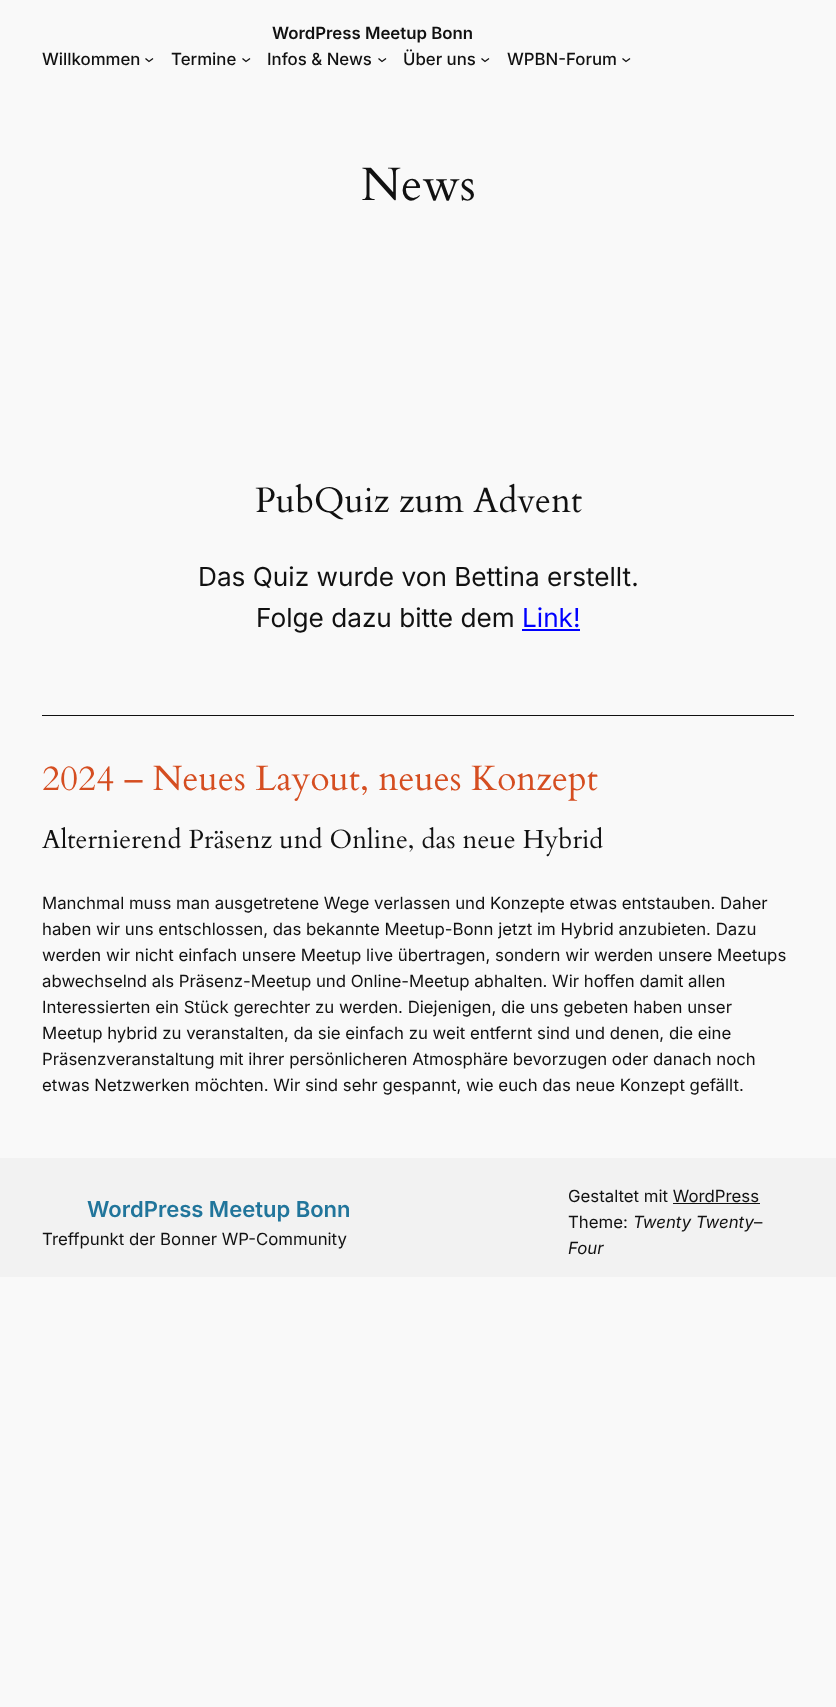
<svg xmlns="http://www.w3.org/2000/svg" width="836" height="1707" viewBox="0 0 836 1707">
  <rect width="100%" height="100%" fill="#f9f9f9"/>
  <text x="272" y="39" font-family="Inter" font-size="16.8" font-weight="600" fill="#111111">WordPress Meetup Bonn</text>
  <text x="42" y="65" font-family="Inter" font-size="16.8" font-weight="500" fill="#111111">Willkommen</text>
  <path d="M145.5 58.5L149 61.5L153 58.5" fill="none" stroke="#111111" stroke-width="1.3"/>
  <text x="171" y="65" font-family="Inter" font-size="16.8" font-weight="500" fill="#111111">Termine</text>
  <path d="M242.5 58.5L246 61.5L250 58.5" fill="none" stroke="#111111" stroke-width="1.3"/>
  <text x="267" y="65" font-family="Inter" font-size="16.8" font-weight="500" fill="#111111">Infos &amp; News</text>
  <path d="M378.5 58.5L382 61.5L386 58.5" fill="none" stroke="#111111" stroke-width="1.3"/>
  <text x="403" y="65" font-family="Inter" font-size="16.8" font-weight="500" fill="#111111">Über uns</text>
  <path d="M481.5 58.5L485 61.5L489 58.5" fill="none" stroke="#111111" stroke-width="1.3"/>
  <text x="507" y="65" font-family="Inter" font-size="16.8" font-weight="500" fill="#111111">WPBN-Forum</text>
  <path d="M622.5 58.5L626 61.5L630 58.5" fill="none" stroke="#111111" stroke-width="1.3"/>
  <text x="361" y="200" font-family="Cardo" font-size="47" fill="#111111">News</text>
  <text x="255" y="512" font-family="Cardo" font-size="35.25" fill="#111111">PubQuiz zum Advent</text>
  <text x="198" y="586" font-family="Inter" font-size="26.2" fill="#111111">Das Quiz wurde von Bettina erstellt.</text>
  <text x="256" y="627" font-family="Inter" font-size="26.2" fill="#111111">Folge dazu bitte dem</text>
  <text x="522" y="627" font-family="Inter" font-size="26.2" fill="#0000ff">Link!</text>
  <rect x="522" y="629" width="58" height="2" fill="#0000ff"/>
  <rect x="42" y="715" width="752" height="1" fill="#111111"/>
  <text x="42" y="790" font-family="Cardo" font-size="35.25" fill="#d54e21">2024 – Neues Layout, neues Konzept</text>
  <text x="42" y="848" font-family="Cardo" font-size="26.2" fill="#111111">Alternierend Präsenz und Online, das neue Hybrid</text>
  <text x="42" y="909" font-family="Inter" font-size="16.8" fill="#111111">Manchmal muss man ausgetretene Wege verlassen und Konzepte etwas entstauben. Daher</text>
  <text x="42" y="935" font-family="Inter" font-size="16.8" fill="#111111">haben wir uns entschlossen, das bekannte Meetup-Bonn jetzt im Hybrid anzubieten. Dazu</text>
  <text x="42" y="961" font-family="Inter" font-size="16.8" fill="#111111">werden wir nicht einfach unsere Meetup live übertragen, sondern wir werden unsere Meetups</text>
  <text x="42" y="987" font-family="Inter" font-size="16.8" fill="#111111">abwechselnd als Präsenz-Meetup und Online-Meetup abhalten. Wir hoffen damit allen</text>
  <text x="42" y="1013" font-family="Inter" font-size="16.8" fill="#111111">Interessierten ein Stück gerechter zu werden. Diejenigen, die uns gebeten haben unser</text>
  <text x="42" y="1039" font-family="Inter" font-size="16.8" fill="#111111">Meetup hybrid zu veranstalten, da sie einfach zu weit entfernt sind und denen, die eine</text>
  <text x="42" y="1065" font-family="Inter" font-size="16.8" fill="#111111">Präsenzveranstaltung mit ihrer persönlicheren Atmosphäre bevorzugen oder danach noch</text>
  <text x="42" y="1091" font-family="Inter" font-size="16.8" fill="#111111">etwas Netzwerken möchten. Wir sind sehr gespannt, wie euch das neue Konzept gefällt.</text>
  <rect x="0" y="1158" width="836" height="119" fill="#f2f2f2"/>
  <text x="87" y="1217" font-family="Inter" font-size="22" font-weight="600" fill="#21759b">WordPress Meetup Bonn</text>
  <text x="42" y="1245" font-family="Inter" font-size="16.8" fill="#111111">Treffpunkt der Bonner WP-Community</text>
  <text x="568" y="1202" font-family="Inter" font-size="16.8" fill="#111111">Gestaltet mit WordPress</text>
  <rect x="673" y="1203" width="87" height="1" fill="#111111"/>
  <text x="568" y="1228" font-family="Inter" font-size="16.8" fill="#111111">Theme:</text>
  <text x="633" y="1228" font-family="Inter" font-size="16.8" font-style="italic" fill="#111111">Twenty Twenty</text>
  <text x="754" y="1228" font-family="Inter" font-size="16.8" fill="#111111">–</text>
  <text x="568" y="1254" font-family="Inter" font-size="16.8" font-style="italic" fill="#111111">Four</text>
</svg>
